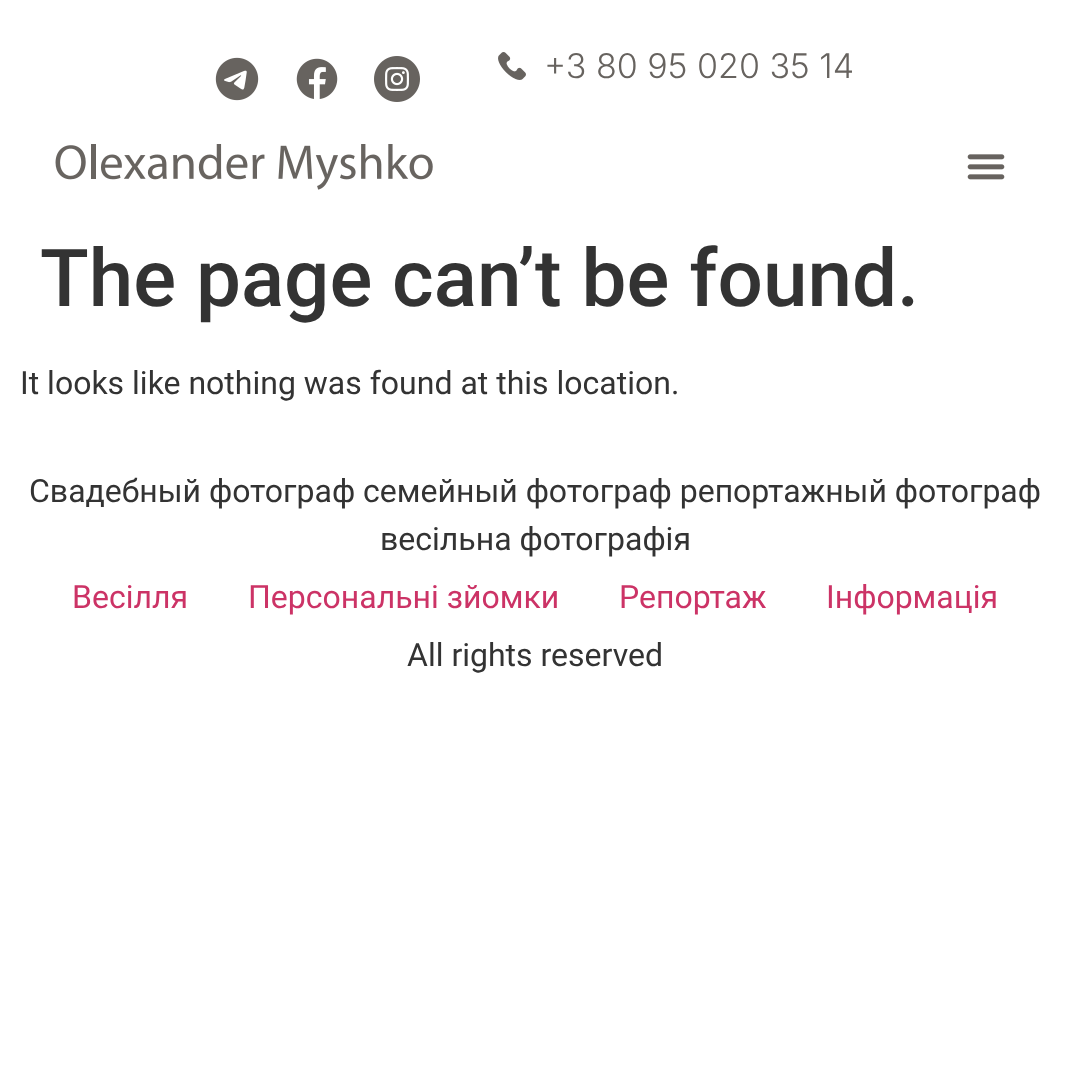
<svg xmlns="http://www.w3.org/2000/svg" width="1069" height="1072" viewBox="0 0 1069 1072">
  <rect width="100%" height="100%" fill="#ffffff"/>
  <image x="215" y="57" width="44" height="44" href="img1.png"/>
  <image x="296" y="58" width="42" height="41" href="img2.png"/>
  <image x="374" y="56" width="46" height="46" href="img3.png"/>
  <image x="498" y="52" width="28" height="28" href="img4.png"/>
  <text x="544" y="78" font-family="Inter" font-size="34" font-weight="300" fill="#67635f">+3 80 95 020 35 14</text>
  <image x="55" y="144" width="378" height="46" href="img5.png"/>
  <image x="967" y="154" width="38" height="26" href="img6.png"/>
  <text x="40" y="306" font-family="Roboto" font-size="80" font-weight="500" fill="#333333">The page can’t be found.</text>
  <text x="20" y="394" font-family="Roboto" font-size="32" fill="#333333">It looks like nothing was found at this location.</text>
  <text x="29" y="502" font-family="Roboto" font-size="32" fill="#333333">Свадебный фотограф семейный фотограф репортажный фотограф</text>
  <text x="380" y="550" font-family="Roboto" font-size="32" fill="#333333">весільна фотографія</text>
  <text x="72" y="608" font-family="Roboto" font-size="32" fill="#cc3366">Весілля</text>
  <text x="248" y="608" font-family="Roboto" font-size="32" fill="#cc3366">Персональні зйомки</text>
  <text x="619" y="608" font-family="Roboto" font-size="32" fill="#cc3366">Репортаж</text>
  <text x="826" y="608" font-family="Roboto" font-size="32" fill="#cc3366">Інформація</text>
  <text x="407" y="666" font-family="Roboto" font-size="32" fill="#333333">All rights reserved</text>
</svg>
